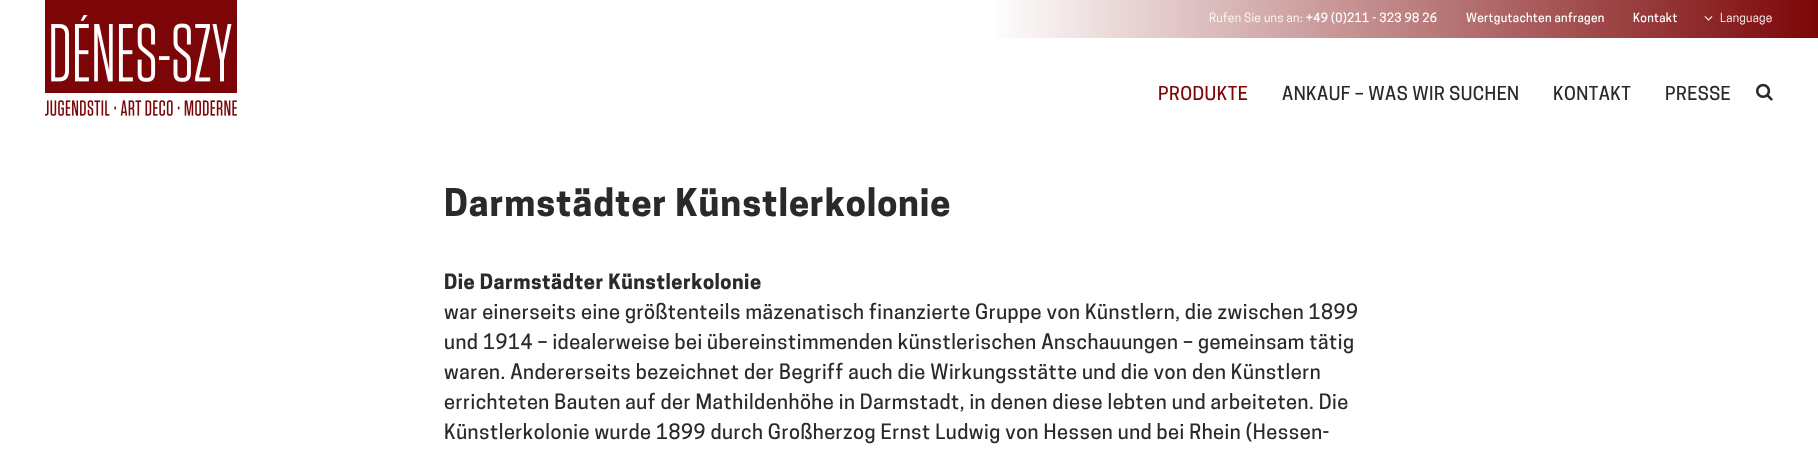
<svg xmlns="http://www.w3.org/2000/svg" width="1818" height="449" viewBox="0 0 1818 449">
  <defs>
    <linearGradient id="g1" gradientUnits="userSpaceOnUse" x1="988" y1="19" x2="1818" y2="19"><stop offset="0" stop-color="#ffffff"/><stop offset="1" stop-color="#7c0607"/></linearGradient>
  </defs>
  <rect width="100%" height="100%" fill="#ffffff"/>
  <image x="45" y="0" width="192" height="116" href="img1.png"/>
  <rect x="996" y="0" width="822" height="38" fill="url(#g1)"/>
  <text x="1209" y="22" font-family="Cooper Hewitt" font-size="12" letter-spacing="0.3" fill="#ffffff">Rufen Sie uns an</text>
  <text x="1300" y="22" font-family="Cooper Hewitt" font-size="12" font-weight="500" letter-spacing="0.3" fill="#ffffff">: +49 (0)211 - 323 98 26</text>
  <text x="1466" y="22" font-family="Cooper Hewitt" font-size="12" font-weight="500" letter-spacing="0.3" fill="#ffffff">Wertgutachten anfragen</text>
  <text x="1633" y="22" font-family="Cooper Hewitt" font-size="12" font-weight="500" letter-spacing="0.3" fill="#ffffff">Kontakt</text>
  <image x="1704" y="16" width="9" height="5" href="img2.png"/>
  <text x="1720" y="22" font-family="Cooper Hewitt" font-size="12" letter-spacing="0.3" fill="#ffffff">Language</text>
  <text x="1158" y="100" font-family="Cooper Hewitt" font-size="18" font-weight="500" letter-spacing="0.45" fill="#7c0607">PRODUKTE</text>
  <text x="1282" y="100" font-family="Cooper Hewitt" font-size="18" font-weight="500" letter-spacing="0.45" fill="#2a2a2a">ANKAUF – WAS WIR SUCHEN</text>
  <text x="1553" y="100" font-family="Cooper Hewitt" font-size="18" font-weight="500" letter-spacing="0.45" fill="#2a2a2a">KONTAKT</text>
  <text x="1665" y="100" font-family="Cooper Hewitt" font-size="18" font-weight="500" letter-spacing="0.45" fill="#2a2a2a">PRESSE</text>
  <image x="1756" y="83" width="17" height="18" href="img3.png"/>
  <text x="444" y="216" font-family="Cooper Hewitt" font-size="36" font-weight="bold" letter-spacing="0.9" fill="#2a2a2a">Darmstädter Künstlerkolonie</text>
  <text x="444" y="289" font-family="Cooper Hewitt" font-size="20" font-weight="bold" letter-spacing="0.5" fill="#2a2a2a">Die Darmstädter Künstlerkolonie</text>
  <text x="444" y="319" font-family="Cooper Hewitt" font-size="20" font-weight="500" letter-spacing="0.5" fill="#2a2a2a">war einerseits eine größtenteils mäzenatisch finanzierte Gruppe von Künstlern, die zwischen 1899</text>
  <text x="444" y="349" font-family="Cooper Hewitt" font-size="20" font-weight="500" letter-spacing="0.5" fill="#2a2a2a">und 1914 – idealerweise bei übereinstimmenden künstlerischen Anschauungen – gemeinsam tätig</text>
  <text x="444" y="379" font-family="Cooper Hewitt" font-size="20" font-weight="500" letter-spacing="0.5" fill="#2a2a2a">waren. Andererseits bezeichnet der Begriff auch die Wirkungsstätte und die von den Künstlern</text>
  <text x="444" y="409" font-family="Cooper Hewitt" font-size="20" font-weight="500" letter-spacing="0.5" fill="#2a2a2a">errichteten Bauten auf der Mathildenhöhe in Darmstadt, in denen diese lebten und arbeiteten. Die</text>
  <text x="444" y="439" font-family="Cooper Hewitt" font-size="20" font-weight="500" letter-spacing="0.5" fill="#2a2a2a">Künstlerkolonie wurde 1899 durch Großherzog Ernst Ludwig von Hessen und bei Rhein (Hessen-</text>
</svg>
